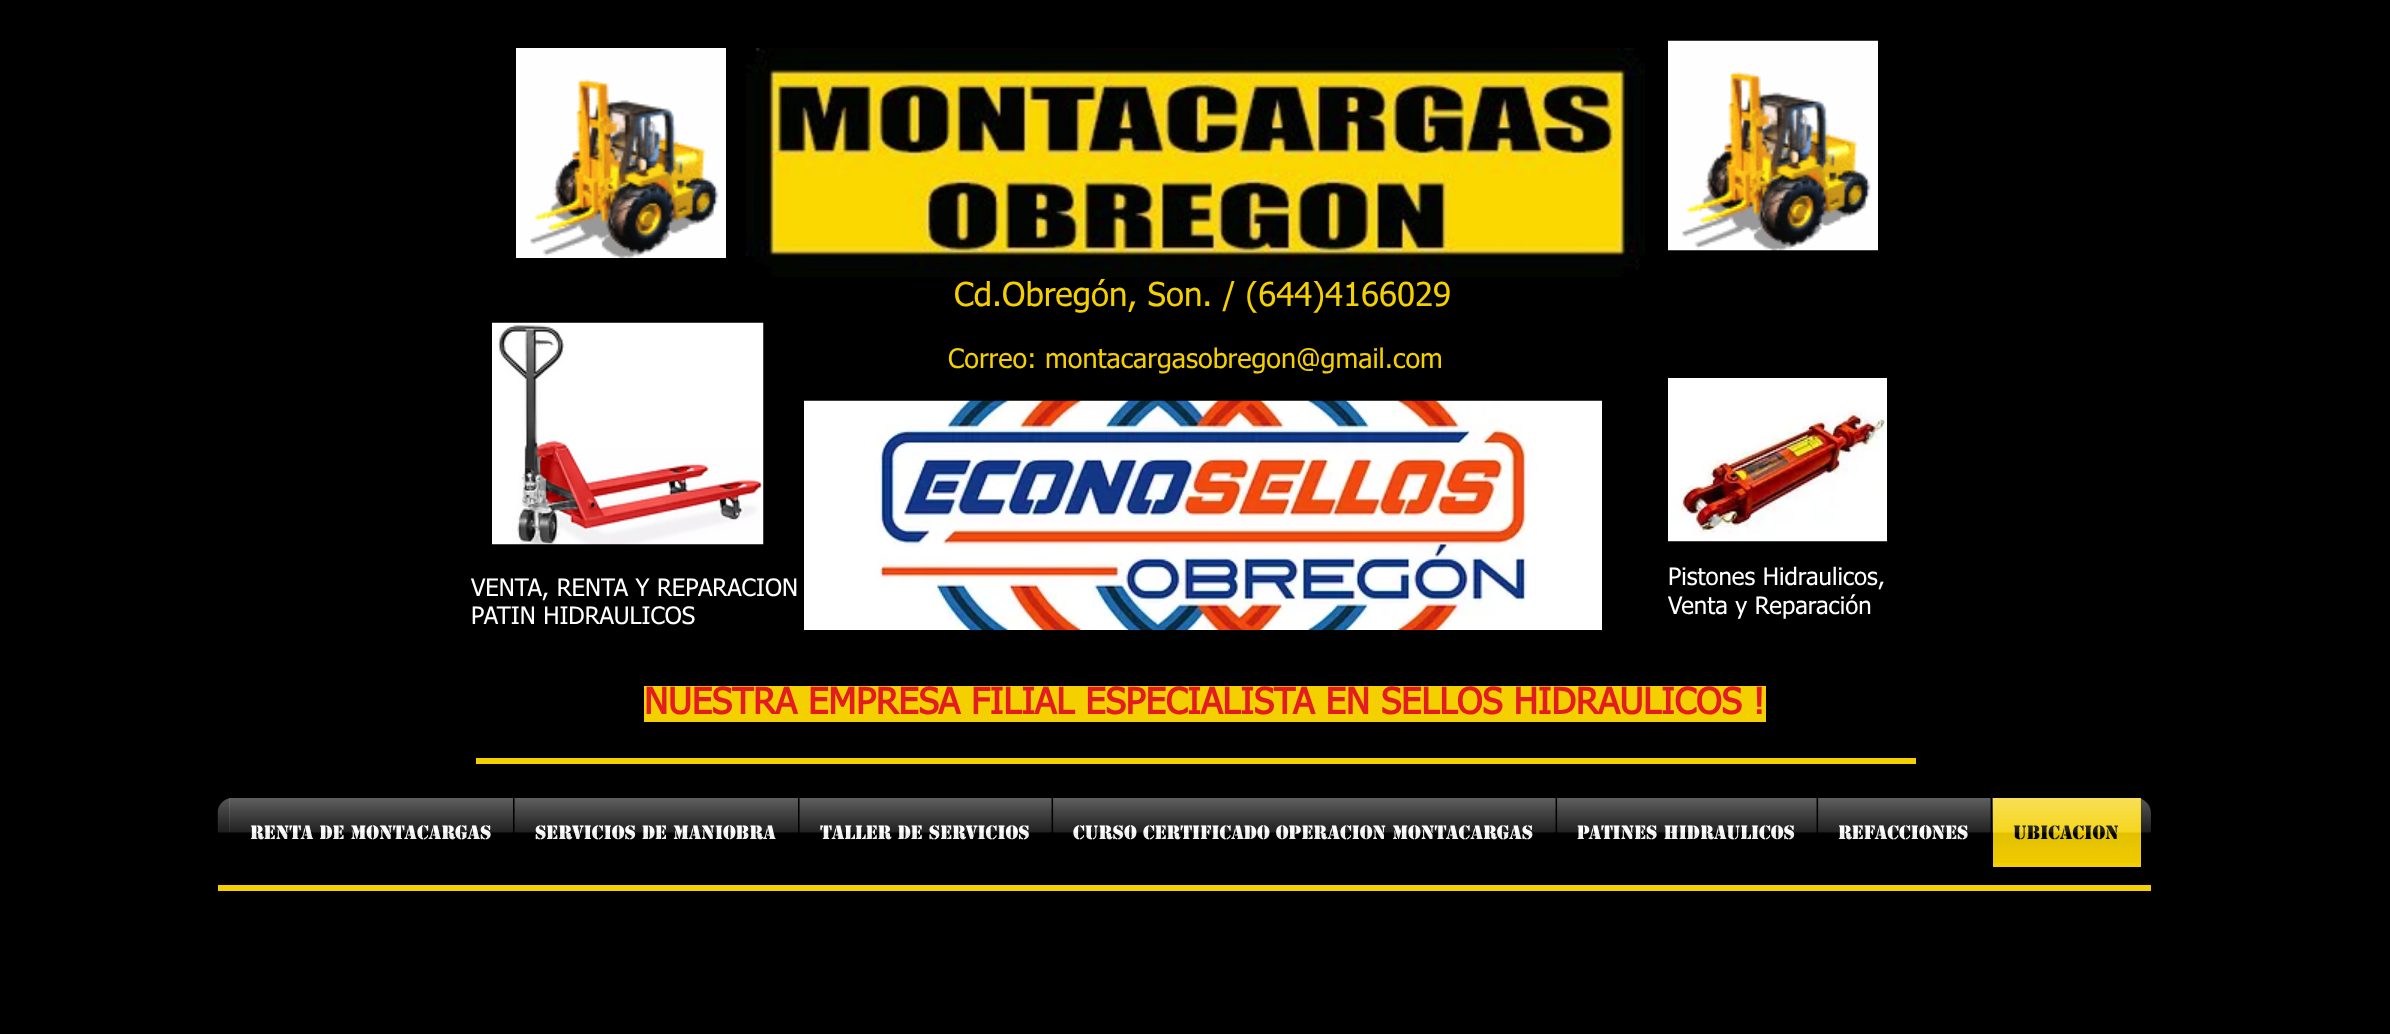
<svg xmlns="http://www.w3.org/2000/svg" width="2390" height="1034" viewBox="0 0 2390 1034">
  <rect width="100%" height="100%" fill="#000000"/>
  <image x="516" y="48" width="210" height="210" href="img1.png"/>
  <image x="746" y="48" width="899" height="229" href="img2.png"/>
  <image x="1668" y="40" width="210" height="211" href="img3.png"/>
  <text x="954" y="306" font-family="tahoma" font-size="33" fill="#f5d000">Cd.Obregón, Son. / (644)4166029</text>
  <image x="492" y="322" width="272" height="223" href="img4.png"/>
  <text x="948" y="368" font-family="tahoma" font-size="27" fill="#f5d000">Correo: montacargasobregon@gmail.com</text>
  <image x="804" y="400" width="798" height="230" href="img5.png"/>
  <image x="1668" y="378" width="219" height="164" href="img6.png"/>
  <text x="471" y="596" font-family="tahoma" font-size="24" fill="#ffffff">VENTA, RENTA Y REPARACION</text>
  <text x="471" y="624" font-family="tahoma" font-size="24" fill="#ffffff">PATIN HIDRAULICOS</text>
  <text x="1668" y="585" font-family="tahoma" font-size="24" fill="#ffffff">Pistones Hidraulicos,</text>
  <text x="1668" y="614" font-family="tahoma" font-size="24" fill="#ffffff">Venta y Reparación</text>
  <rect x="644" y="686" width="1122" height="36" fill="#f5d000"/>
  <text x="644" y="714" font-family="tahoma" font-size="36" font-weight="bold" fill="#e21c21">NUESTRA EMPRESA FILIAL ESPECIALISTA EN SELLOS HIDRAULICOS !</text>
  <rect x="476" y="758" width="1440" height="6" fill="#f5d000"/>
  <image x="217" y="798" width="1934" height="35" href="img7.png"/>
  <rect x="230" y="798" width="283" height="35" fill="#000000" fill-opacity="0.85"/>
  <text x="250" y="839" font-family="'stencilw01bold'" font-size="18" font-weight="bold" fill="#ffffff">RENTA DE MONTACARGAS</text>
  <image x="229" y="798" width="284" height="41" href="img8.png"/>
  <rect x="515" y="798" width="283" height="35" fill="#000000" fill-opacity="0.85"/>
  <rect x="513" y="798" width="2" height="35" fill="#000000"/>
  <text x="535" y="839" font-family="'stencilw01bold'" font-size="18" font-weight="bold" fill="#ffffff">SERVICIOS DE MANIOBRA</text>
  <image x="514" y="798" width="284" height="41" href="img9.png"/>
  <rect x="800" y="798" width="252" height="35" fill="#000000" fill-opacity="0.85"/>
  <rect x="798" y="798" width="2" height="35" fill="#000000"/>
  <text x="820" y="839" font-family="'stencilw01bold'" font-size="18" font-weight="bold" fill="#ffffff">TALLER DE SERVICIOS</text>
  <image x="799" y="798" width="253" height="41" href="img10.png"/>
  <rect x="1054" y="798" width="502" height="35" fill="#000000" fill-opacity="0.85"/>
  <rect x="1052" y="798" width="2" height="35" fill="#000000"/>
  <text x="1073" y="839" font-family="'stencilw01bold'" font-size="18" font-weight="bold" fill="#ffffff">CURSO CERTIFICADO OPERACION MONTACARGAS</text>
  <image x="1053" y="798" width="503" height="41" href="img11.png"/>
  <rect x="1558" y="798" width="259" height="35" fill="#000000" fill-opacity="0.85"/>
  <rect x="1556" y="798" width="2" height="35" fill="#000000"/>
  <text x="1577" y="839" font-family="'stencilw01bold'" font-size="18" font-weight="bold" fill="#ffffff">PATINES HIDRAULICOS</text>
  <image x="1557" y="798" width="260" height="42" href="img12.png"/>
  <rect x="1819" y="798" width="172" height="35" fill="#000000" fill-opacity="0.85"/>
  <rect x="1817" y="798" width="2" height="35" fill="#000000"/>
  <text x="1838" y="839" font-family="'stencilw01bold'" font-size="18" font-weight="bold" fill="#ffffff">REFACCIONES</text>
  <image x="1818" y="798" width="173" height="41" href="img13.png"/>
  <rect x="1993" y="798" width="148" height="69" fill="#f5d000"/>
  <rect x="1991" y="798" width="2" height="35" fill="#000000"/>
  <text x="2013" y="839" font-family="'stencilw01bold'" font-size="18" font-weight="bold" fill="#000000">UBICACION</text>
  <image x="1992" y="798" width="149" height="65" href="img14.png"/>
  <rect x="218" y="885" width="1933" height="6" fill="#f5d000"/>
</svg>
